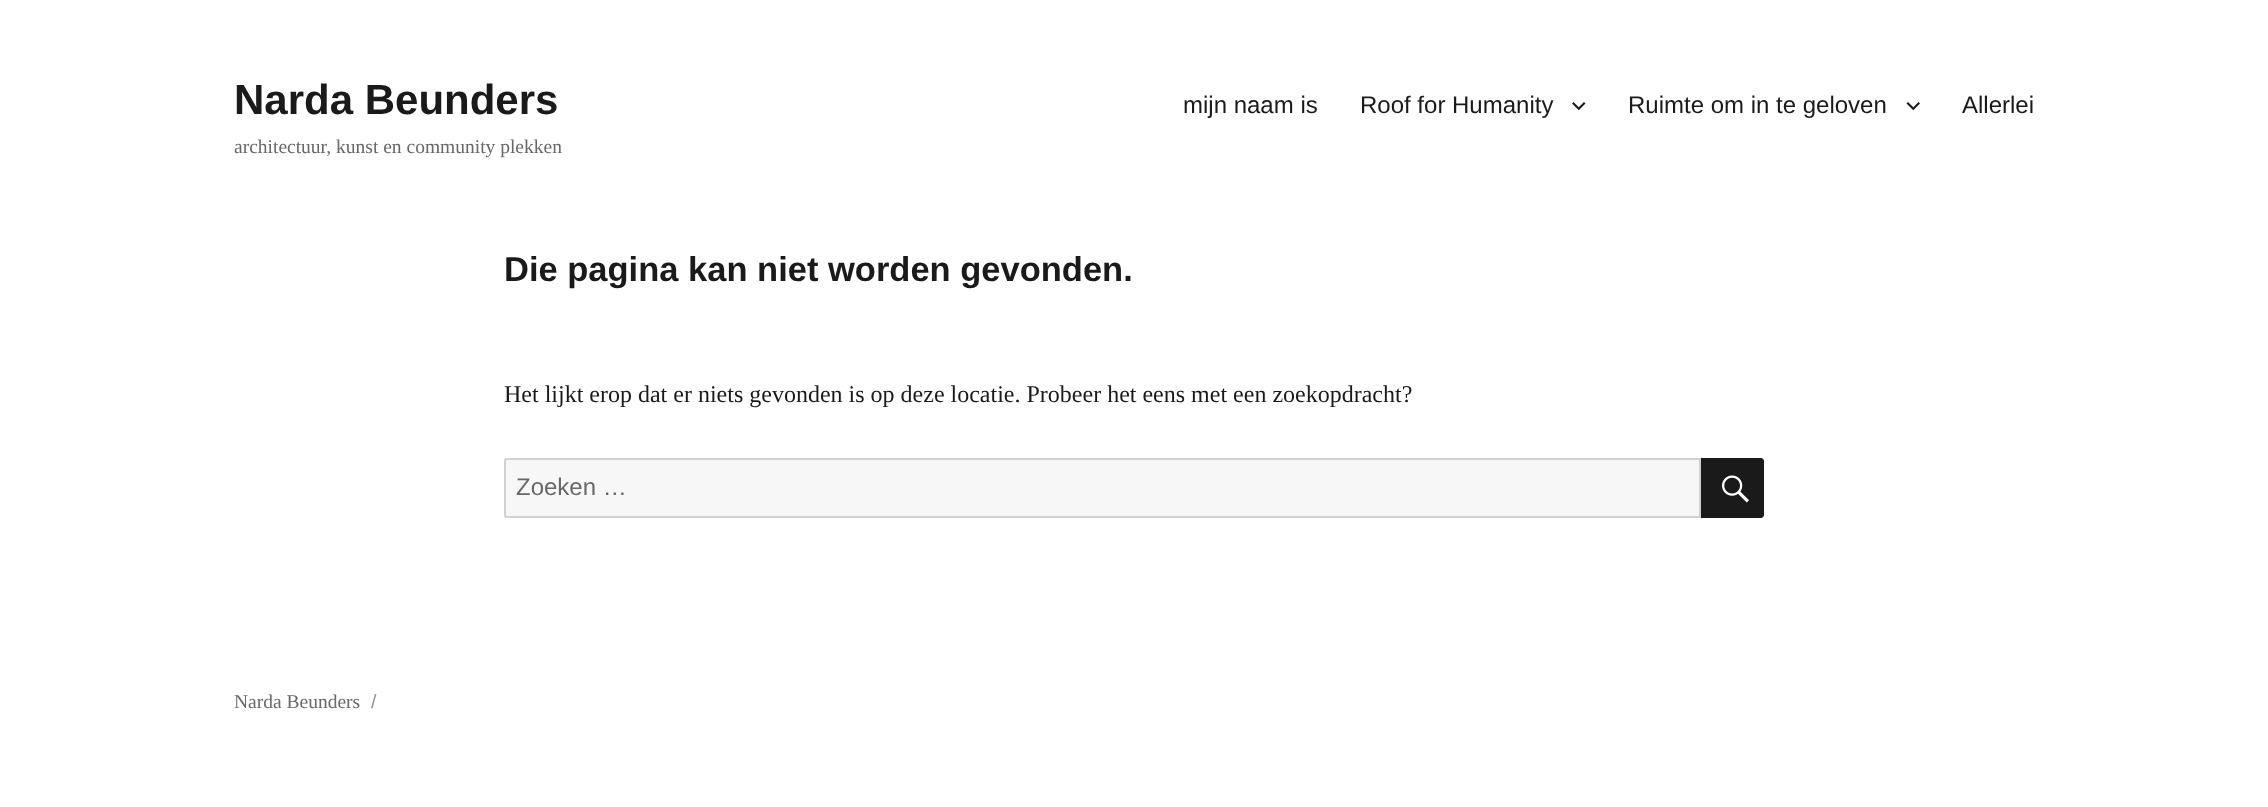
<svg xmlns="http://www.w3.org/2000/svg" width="2268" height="807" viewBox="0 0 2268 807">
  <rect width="100%" height="100%" fill="#ffffff"/>
  <text x="234" y="114" font-family="Liberation Sans" font-size="42" font-weight="bold" fill="#1a1a1a">Narda Beunders</text>
  <text x="234" y="153" font-family="Liberation Serif" font-size="19.5" fill="#686868">architectuur, kunst en community plekken</text>
  <text x="1183" y="113" font-family="Liberation Sans" font-size="24" fill="#1a1a1a">mijn naam is</text>
  <text x="1360" y="113" font-family="Liberation Sans" font-size="24" fill="#1a1a1a">Roof for Humanity</text>
  <image x="1572" y="102" width="14" height="9" href="img1.png"/>
  <text x="1628" y="113" font-family="Liberation Sans" font-size="24" fill="#1a1a1a">Ruimte om in te geloven</text>
  <image x="1906" y="102" width="14" height="9" href="img2.png"/>
  <text x="1962" y="113" font-family="Liberation Sans" font-size="24" fill="#1a1a1a">Allerlei</text>
  <text x="504" y="281" font-family="Liberation Sans" font-size="34.5" font-weight="bold" fill="#1a1a1a">Die pagina kan niet worden gevonden.</text>
  <text x="504" y="402" font-family="Liberation Serif" font-size="24" fill="#1a1a1a">Het lijkt erop dat er niets gevonden is op deze locatie. Probeer het eens met een zoekopdracht?</text>
  <path d="M507 459H1700V517H507C506 517 505 516 505 515V461C505 460 506 459 507 459Z" fill="#f7f7f7" stroke="#d1d1d1" stroke-width="2"/>
  <text x="516" y="495" font-family="Liberation Sans" font-size="24" fill="#686868">Zoeken …</text>
  <path d="M1701 458H1761C1762.5 458 1764 459.5 1764 461V515C1764 516.5 1762.5 518 1761 518H1701Z" fill="#1a1a1a"/>
  <image x="1722" y="475" width="27" height="28" href="img3.png"/>
  <text x="234" y="708" font-family="Liberation Serif" font-size="19.5" fill="#686868">Narda Beunders</text>
  <text x="371" y="708" font-family="Liberation Sans" font-size="19.5" fill="#959595">/</text>
</svg>
